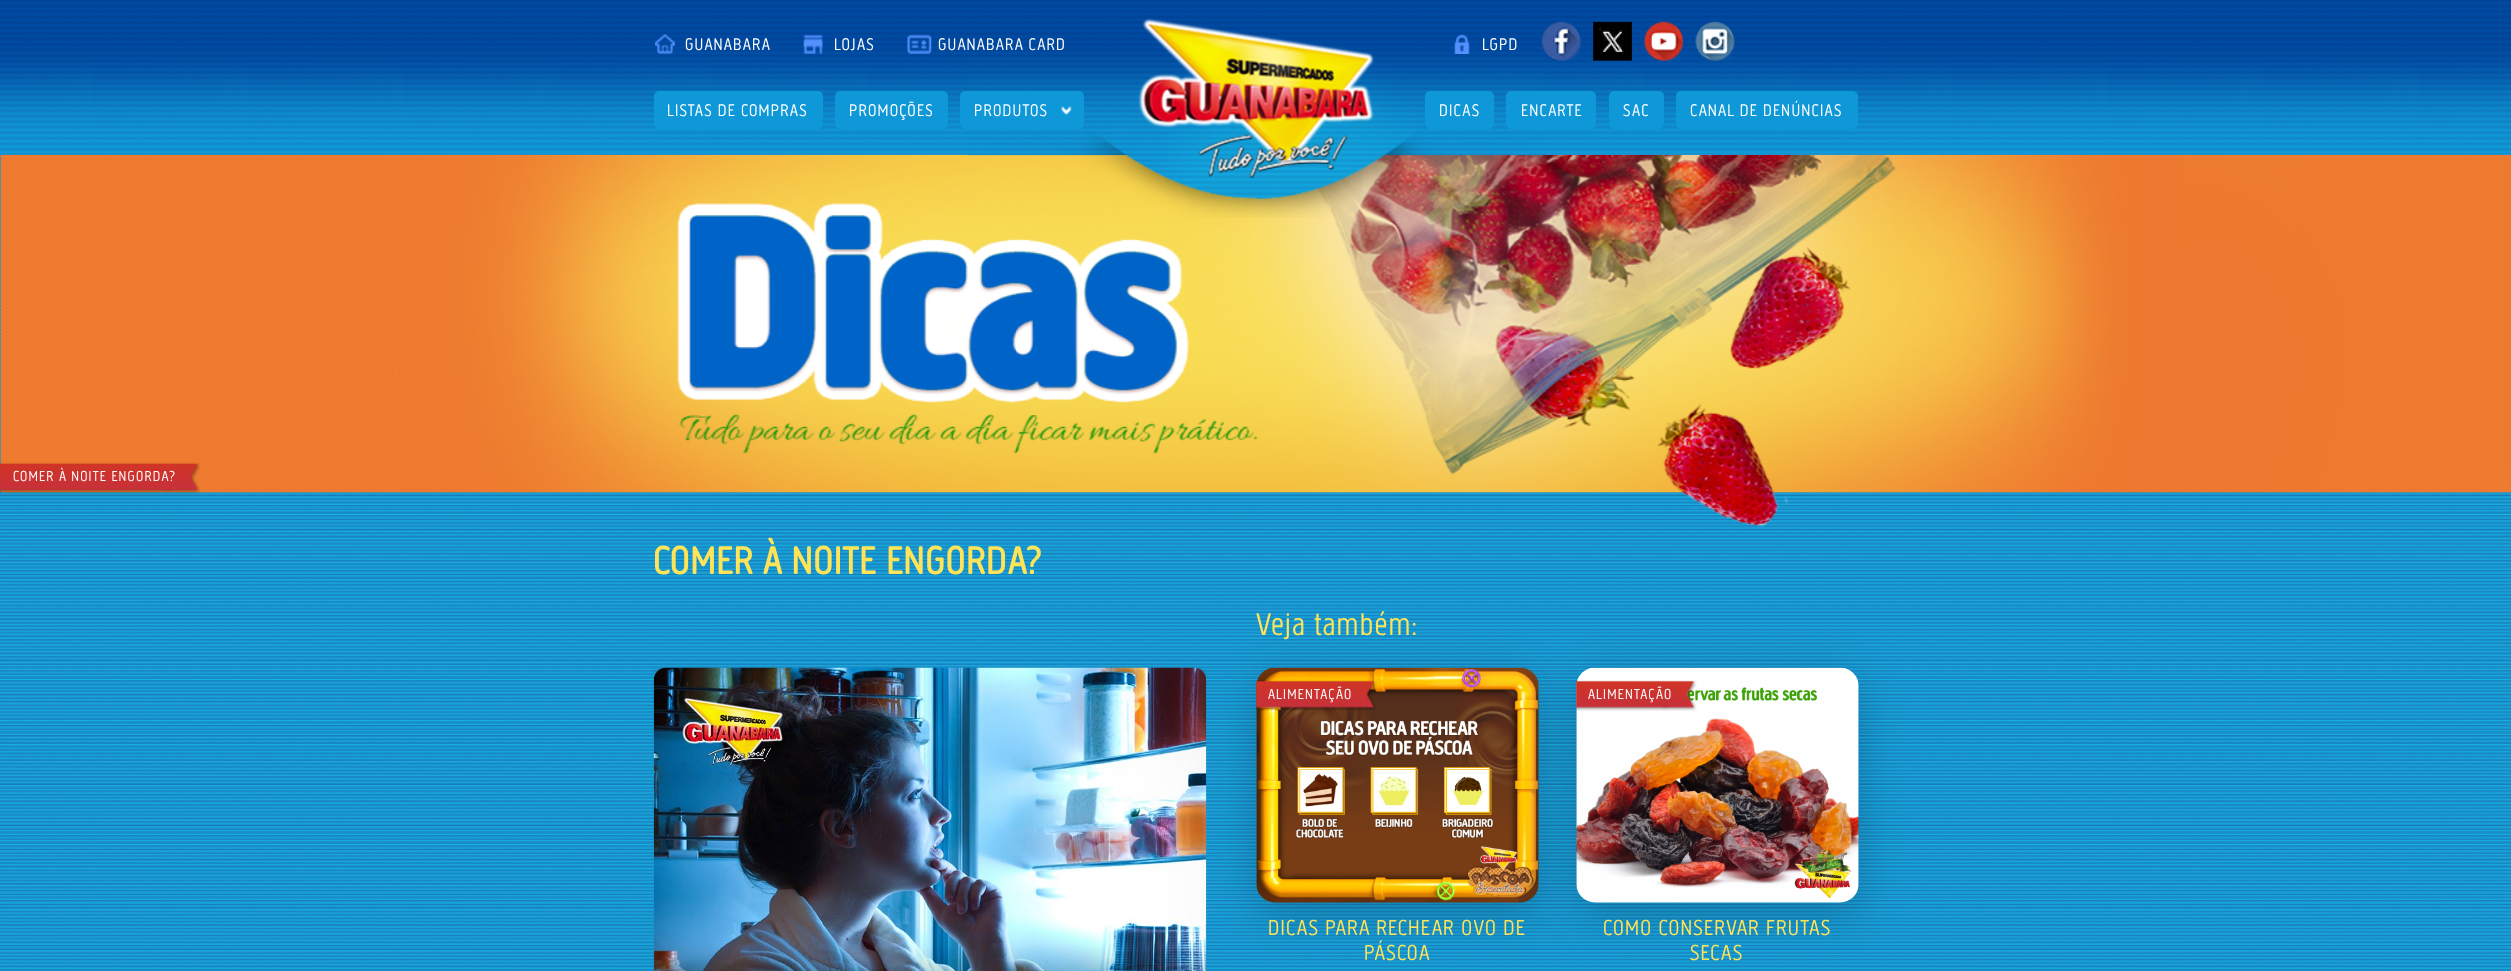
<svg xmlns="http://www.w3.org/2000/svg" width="2511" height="971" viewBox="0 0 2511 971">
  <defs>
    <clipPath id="clip1"><rect x="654" y="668" width="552" height="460"/></clipPath>
    <filter id="blur1" x="-50%" y="-200%" width="200%" height="500%"><feGaussianBlur stdDeviation="22"/></filter>
  </defs>
  <rect width="100%" height="100%" fill="#ffffff"/>
  <image x="0" y="155" width="2511" height="816" href="img1.png"/>
  <image x="0" y="0" width="2511" height="155" href="img2.png"/>
  <image x="0" y="155" width="2511" height="372" href="img14.png"/>
  <image x="967" y="57" width="578" height="161" href="img13.png"/>
  <image x="1138" y="18" width="236" height="160" href="img3.png"/>
  <image x="655" y="34" width="20" height="20" href="img4.png"/>
  <text x="685" y="50" font-family="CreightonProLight" font-size="17.5" font-weight="300" letter-spacing="1.25" fill="#ffffff">GUANABARA</text>
  <image x="803" y="34" width="20" height="20" href="img5.png"/>
  <text x="834" y="50" font-family="CreightonProLight" font-size="17.5" font-weight="300" letter-spacing="1.25" fill="#ffffff">LOJAS</text>
  <image x="907" y="34" width="25" height="20" href="img6.png"/>
  <text x="938" y="50" font-family="CreightonProLight" font-size="17.5" font-weight="300" letter-spacing="1.25" fill="#ffffff">GUANABARA CARD</text>
  <image x="1453" y="34" width="17" height="20" href="img7.png"/>
  <text x="1482" y="50" font-family="CreightonProLight" font-size="17.5" font-weight="300" letter-spacing="1.25" fill="#ffffff">LGPD</text>
  <image x="1541" y="21" width="40" height="40" href="img8.png"/>
  <image x="1593" y="21" width="39" height="40" href="img9.png"/>
  <image x="1644" y="21" width="40" height="40" href="img10.png"/>
  <image x="1695" y="21" width="40" height="40" href="img11.png"/>
  <rect x="654" y="91" width="169" height="38" rx="5" fill="#0f98d8"/>
  <text x="667" y="116" font-family="CreightonProLight" font-size="17.5" font-weight="300" letter-spacing="1.25" fill="#ffffff">LISTAS DE COMPRAS</text>
  <rect x="835" y="91" width="113" height="38" rx="5" fill="#0f98d8"/>
  <text x="849" y="116" font-family="CreightonProLight" font-size="17.5" font-weight="300" letter-spacing="1.25" fill="#ffffff">PROMOÇÕES</text>
  <rect x="960" y="91" width="124" height="38" rx="5" fill="#0f98d8"/>
  <text x="974" y="116" font-family="CreightonProLight" font-size="17.5" font-weight="300" letter-spacing="1.25" fill="#ffffff">PRODUTOS</text>
  <image x="1061" y="106" width="11" height="9" href="img12.png"/>
  <rect x="1425" y="91" width="69" height="38" rx="5" fill="#0f98d8"/>
  <text x="1439" y="116" font-family="CreightonProLight" font-size="17.5" font-weight="300" letter-spacing="1.25" fill="#ffffff">DICAS</text>
  <rect x="1506" y="91" width="90" height="38" rx="5" fill="#0f98d8"/>
  <text x="1521" y="116" font-family="CreightonProLight" font-size="17.5" font-weight="300" letter-spacing="1.25" fill="#ffffff">ENCARTE</text>
  <rect x="1609" y="91" width="55" height="38" rx="5" fill="#0f98d8"/>
  <text x="1623" y="116" font-family="CreightonProLight" font-size="17.5" font-weight="300" letter-spacing="1.25" fill="#ffffff">SAC</text>
  <rect x="1676" y="91" width="182" height="38" rx="5" fill="#0f98d8"/>
  <text x="1690" y="116" font-family="CreightonProLight" font-size="17.5" font-weight="300" letter-spacing="1.25" fill="#ffffff">CANAL DE DENÚNCIAS</text>
  <image x="0" y="462" width="200" height="32" href="img15.png"/>
  <text x="13" y="481" font-family="CreightonProLight" font-size="15" font-weight="300" letter-spacing="1.25" fill="#ffffff">COMER À NOITE ENGORDA?</text>
  <text x="653" y="574" font-family="CreightonProLight" font-size="40" font-weight="bold" letter-spacing="1.25" fill="#ffe458">COMER À NOITE ENGORDA?</text>
  <g clip-path="url(#clip1)">
    <rect x="654" y="680" width="552" height="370" rx="13" fill="#000000" fill-opacity="0.2" filter="url(#blur1)"/>
  </g>
  <image x="653" y="667" width="554" height="304" href="img16.png"/>
  <text x="1256" y="635" font-family="CreightonProLight" font-size="32.5" font-weight="300" letter-spacing="1.25" fill="#ffe458">Veja também:</text>
  <rect x="1256" y="680" width="283" height="235" rx="19" fill="#000000" fill-opacity="0.2" filter="url(#blur1)"/>
  <image x="1256" y="667" width="283" height="236" href="img17.png"/>
  <image x="1256" y="680" width="121" height="31" href="img18.png"/>
  <text x="1268" y="699" font-family="CreightonProLight" font-size="15" font-weight="300" letter-spacing="1.25" fill="#ffffff">ALIMENTAÇÃO</text>
  <text x="1268" y="935" font-family="CreightonProLight" font-size="22.5" font-weight="300" letter-spacing="1.25" fill="#ffe458">DICAS PARA RECHEAR OVO DE</text>
  <text x="1364" y="960" font-family="CreightonProLight" font-size="22.5" font-weight="300" letter-spacing="1.25" fill="#ffe458">PÁSCOA</text>
  <rect x="1576" y="680" width="283" height="235" rx="19" fill="#000000" fill-opacity="0.2" filter="url(#blur1)"/>
  <image x="1576" y="667" width="283" height="236" href="img19.png"/>
  <image x="1576" y="680" width="121" height="31" href="img20.png"/>
  <text x="1588" y="699" font-family="CreightonProLight" font-size="15" font-weight="300" letter-spacing="1.25" fill="#ffffff">ALIMENTAÇÃO</text>
  <text x="1603" y="935" font-family="CreightonProLight" font-size="22.5" font-weight="300" letter-spacing="1.25" fill="#ffe458">COMO CONSERVAR FRUTAS</text>
  <text x="1690" y="960" font-family="CreightonProLight" font-size="22.5" font-weight="300" letter-spacing="1.25" fill="#ffe458">SECAS</text>
</svg>
